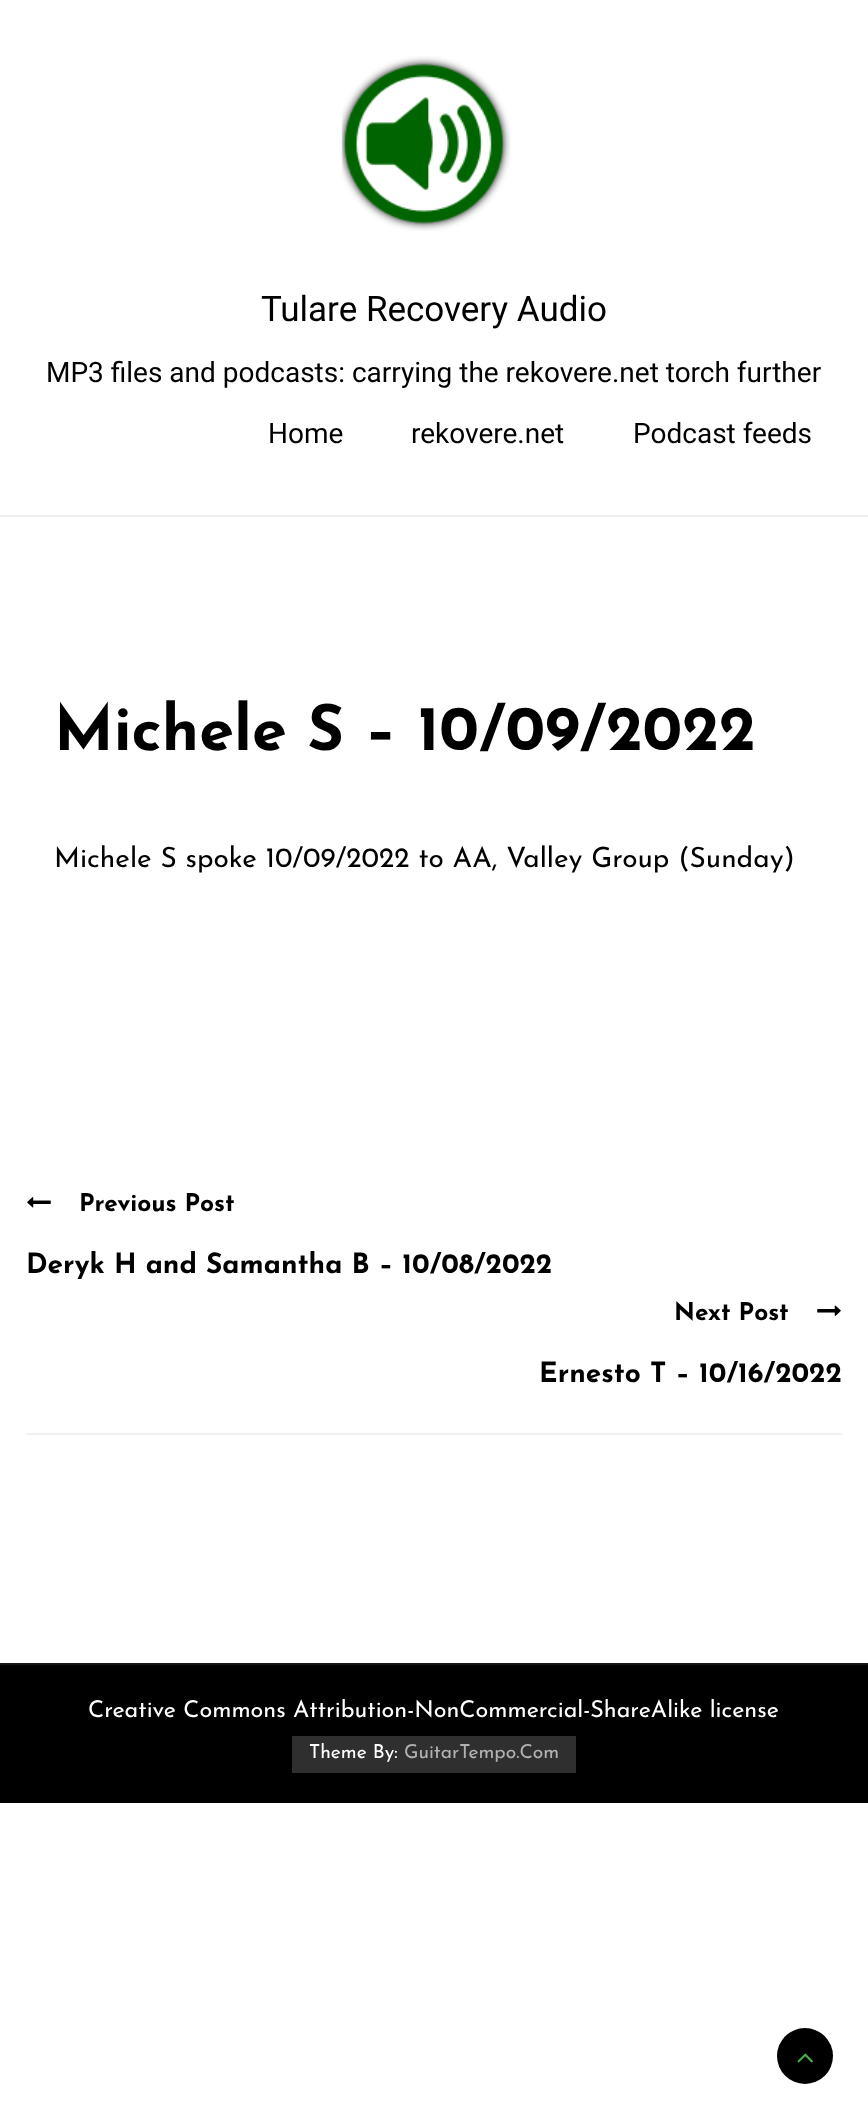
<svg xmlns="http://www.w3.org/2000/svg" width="868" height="2118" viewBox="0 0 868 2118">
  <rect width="100%" height="100%" fill="#ffffff"/>
  <rect x="0" y="515" width="868" height="2" fill="#eeeeee"/>
  <image x="341" y="56" width="170" height="175" href="img1.png"/>
  <text x="261" y="321" font-family="Roboto" font-size="35" fill="#000000">Tulare Recovery Audio</text>
  <text x="46" y="382" font-family="Roboto" font-size="28" fill="#000000">MP3 files and podcasts: carrying the rekovere.net torch further</text>
  <text x="268" y="443" font-family="Roboto" font-size="28" fill="#000000">Home</text>
  <text x="411" y="443" font-family="Roboto" font-size="28" fill="#000000">rekovere.net</text>
  <text x="633" y="443" font-family="Roboto" font-size="28" fill="#000000">Podcast feeds</text>
  <text x="54" y="750" font-family="Josefin Sans" font-size="63" font-weight="bold" fill="#000000">Michele S – 10/09/2022</text>
  <text x="54" y="867" font-family="Josefin Sans" font-size="28" fill="#000000">Michele S spoke 10/09/2022 to AA, Valley Group (Sunday)</text>
  <rect x="26" y="1433" width="816" height="2" fill="#f1f1f1"/>
  <image x="27" y="1197" width="24" height="11" href="img2.png"/>
  <text x="79" y="1211" font-family="Josefin Sans" font-size="24.5" font-weight="bold" fill="#000000">Previous Post</text>
  <text x="26" y="1273" font-family="Josefin Sans" font-size="28" font-weight="bold" fill="#000000">Deryk H and Samantha B – 10/08/2022</text>
  <text x="674" y="1320" font-family="Josefin Sans" font-size="24.5" font-weight="bold" fill="#000000">Next Post</text>
  <image x="817" y="1305" width="24" height="11" href="img3.png"/>
  <text x="539" y="1382" font-family="Josefin Sans" font-size="28" font-weight="bold" fill="#000000">Ernesto T – 10/16/2022</text>
  <rect x="0" y="1665" width="868" height="138" fill="#000000"/>
  <rect x="0" y="1663" width="868" height="2" fill="#161616"/>
  <text x="88" y="1717" font-family="Josefin Sans" font-size="23.3" fill="#ffffff">Creative Commons Attribution-NonCommercial-ShareAlike license</text>
  <rect x="292" y="1736" width="284" height="37" fill="#302f2f"/>
  <text x="309" y="1758" font-family="Josefin Sans" font-size="19.25" fill="#ffffff">Theme By:</text>
  <text x="404" y="1758" font-family="Josefin Sans" font-size="19.25" fill="#b1b1b1">GuitarTempo.Com</text>
  <circle cx="805" cy="2056" r="28" fill="#000000"/>
  <image x="797" y="2053" width="16" height="10" href="img4.png"/>
</svg>
